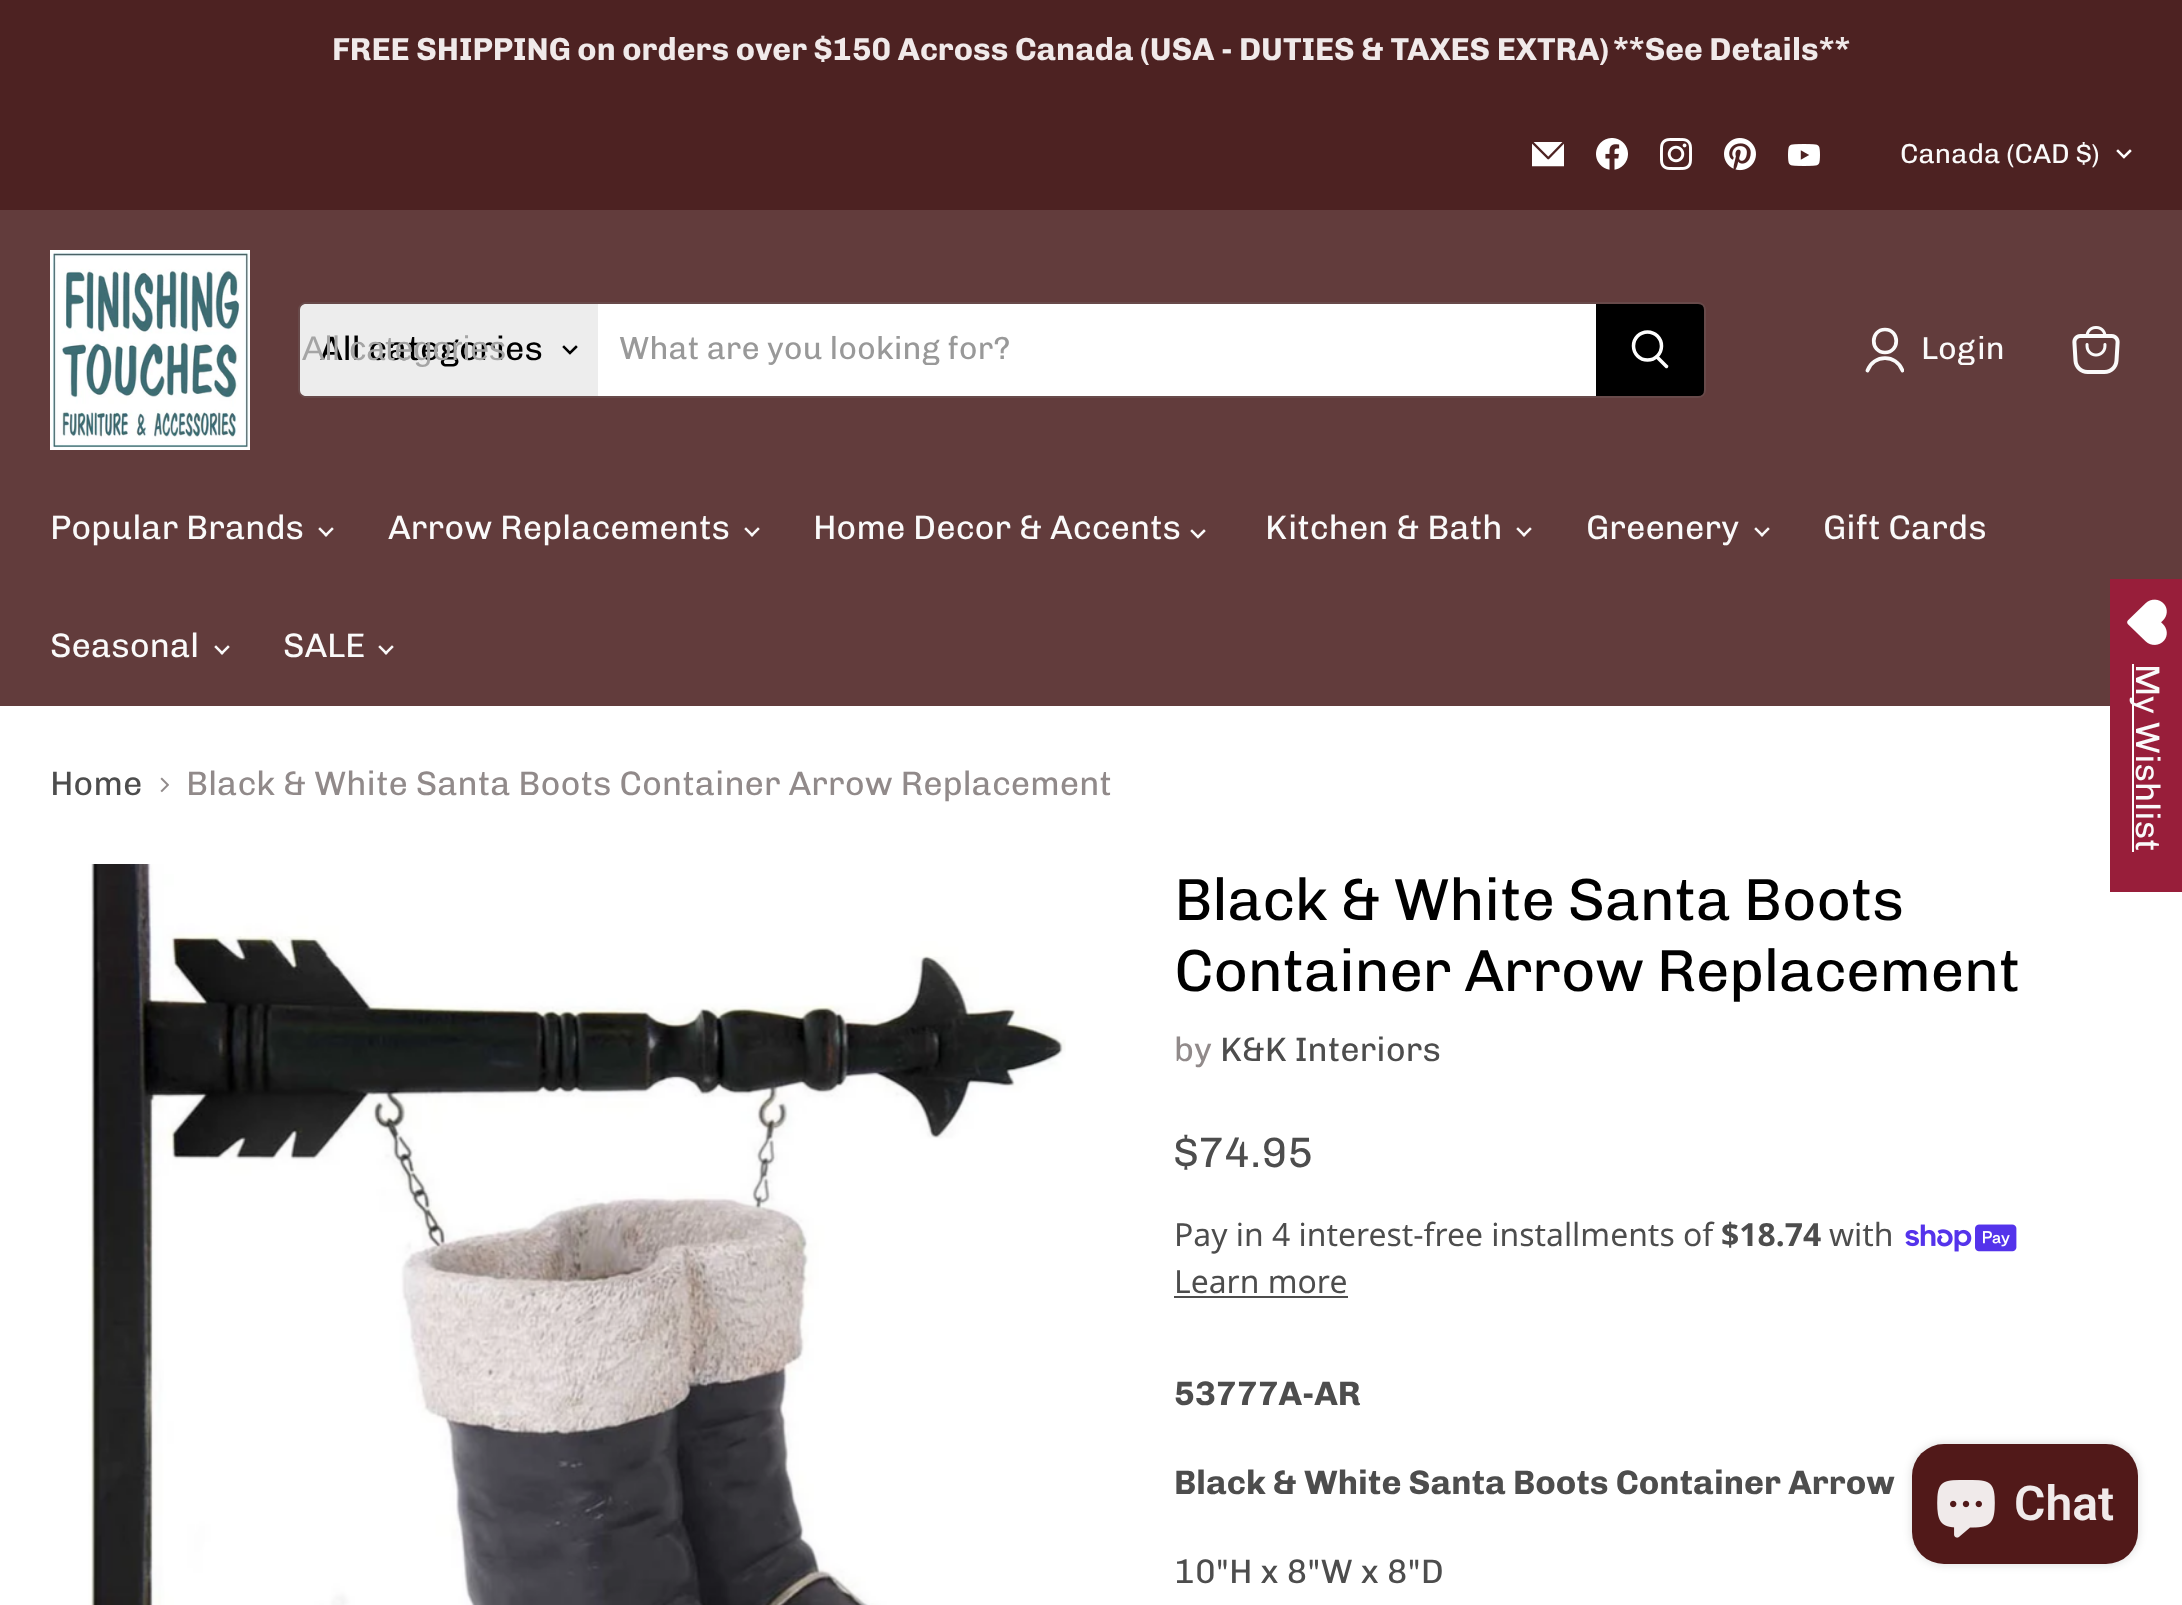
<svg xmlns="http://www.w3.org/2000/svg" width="2182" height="1605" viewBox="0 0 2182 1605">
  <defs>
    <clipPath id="clip1"><rect x="1864" y="326" width="40" height="48"/></clipPath>
    <filter id="blur1" x="-50%" y="-200%" width="200%" height="500%"><feGaussianBlur stdDeviation="5"/></filter>
  </defs>
  <rect width="100%" height="100%" fill="#ffffff"/>
  <rect x="0" y="0" width="2182" height="210" fill="#4d2222"/>
  <text x="332" y="60" font-family="Chivo" font-size="31.9" font-weight="bold" fill="#f0eaea">FREE SHIPPING on orders over $150 Across Canada (USA - DUTIES &amp; TAXES EXTRA)</text>
  <text x="1613" y="60" font-family="Chivo" font-size="31.9" font-weight="bold" fill="#f0eaea">**See Details**</text>
  <image x="1532" y="142" width="32" height="25" href="img1.png"/>
  <image x="1596" y="138" width="32" height="32" href="img2.png"/>
  <image x="1660" y="138" width="32" height="32" href="img3.png"/>
  <image x="1724" y="138" width="32" height="33" href="img4.png"/>
  <image x="1788" y="144" width="32" height="22" href="img5.png"/>
  <text x="1900" y="163" font-family="Chivo" font-size="27.5" fill="#fafafa">Canada (CAD $)</text>
  <path d="M2124 157L2130 151M2124 157L2118 151" fill="none" stroke="#ffffff" stroke-width="2.5" stroke-linecap="square"/>
  <rect x="0" y="210" width="2182" height="496" fill="#623c3c"/>
  <image x="50" y="250" width="200" height="200" href="img6.png"/>
  <rect x="299" y="303" width="1406" height="94" rx="7" fill="none" stroke="#808080" stroke-opacity="0.2" stroke-width="2"/>
  <path d="M306 304H598V396H306C302.5 396 300 393.5 300 390V310C300 306.5 302.5 304 306 304Z" fill="#ededed"/>
  <text x="320" y="360" font-family="Chivo" font-size="34" fill="#000000">All categories</text>
  <text x="302" y="360" font-family="Liberation Sans" font-size="34" fill="#a5a5a5">All categories</text>
  <path d="M570 353L576 347M570 353L564 347" fill="none" stroke="#000000" stroke-width="2.5" stroke-linecap="square"/>
  <rect x="598" y="304" width="998" height="92" fill="#ffffff"/>
  <text x="619" y="359" font-family="Chivo" font-size="32" fill="#999999">What are you looking for?</text>
  <path d="M1597 305H1698C1701 305 1703 307 1703 310V390C1703 393 1701 395 1698 395H1597Z" fill="#000000" stroke="#000000" stroke-width="2"/>
  <path d="M1666.5 366.5L1657 357" fill="none" stroke="#ffffff" stroke-width="3.5" stroke-linecap="round"/>
  <circle cx="1647.5" cy="346" r="14" fill="none" stroke="#ffffff" stroke-width="3.5"/>
  <path d="M1885 352.5C1900 352.5 1900 329.5 1885 329.5C1870 329.5 1870 352.5 1885 352.5Z" fill="none" stroke="#fafafa" stroke-width="3.7" stroke-linecap="round" stroke-linejoin="round"/>
  <g clip-path="url(#clip1)">
    <path d="M1902.5 370.5C1896.5 354 1873.5 354 1867.5 370.5" fill="none" stroke="#fafafa" stroke-width="3.7" stroke-linecap="round" stroke-linejoin="round"/>
  </g>
  <text x="1921" y="359" font-family="Chivo" font-size="31.9" fill="#fafafa">Login</text>
  <image x="2072" y="326" width="48" height="48" href="img7.png"/>
  <text x="50" y="539" font-family="Chivo" font-size="34" fill="#fafafa">Popular Brands</text>
  <image x="318" y="527" width="16" height="10" href="img8.png"/>
  <text x="388" y="539" font-family="Chivo" font-size="34" fill="#fafafa">Arrow Replacements</text>
  <image x="744" y="527" width="16" height="10" href="img8.png"/>
  <text x="813" y="539" font-family="Chivo" font-size="34" fill="#fafafa">Home Decor &amp; Accents</text>
  <path d="M1198 537L1204 531M1198 537L1192 531" fill="none" stroke="#fafafa" stroke-width="2.5" stroke-linecap="square"/>
  <text x="1265" y="539" font-family="Chivo" font-size="34" fill="#fafafa">Kitchen &amp; Bath</text>
  <image x="1516" y="527" width="16" height="10" href="img8.png"/>
  <text x="1586" y="539" font-family="Chivo" font-size="34" fill="#fafafa">Greenery</text>
  <image x="1754" y="527" width="16" height="10" href="img8.png"/>
  <text x="1823" y="539" font-family="Chivo" font-size="34" fill="#fafafa">Gift Cards</text>
  <text x="50" y="657" font-family="Chivo" font-size="34" fill="#fafafa">Seasonal</text>
  <image x="214" y="645" width="16" height="10" href="img8.png"/>
  <text x="283" y="657" font-family="Chivo" font-size="34" fill="#fafafa">SALE</text>
  <image x="378" y="645" width="16" height="10" href="img8.png"/>
  <text x="50" y="795" font-family="Chivo" font-size="34" fill="#4d4d4d">Home</text>
  <image x="160" y="777" width="9" height="16" href="img9.png"/>
  <text x="186" y="795" font-family="Chivo" font-size="34" fill="#918a8a">Black &amp; White Santa Boots Container Arrow Replacement</text>
  <image x="88" y="864" width="978" height="741" href="img10.png"/>
  <text x="1174" y="920" font-family="Chivo" font-size="59.5" letter-spacing="-0.6" fill="#000000">Black &amp; White Santa Boots</text>
  <text x="1174" y="991" font-family="Chivo" font-size="59.5" letter-spacing="-0.6" fill="#000000">Container Arrow Replacement</text>
  <text x="1174" y="1061" font-family="Chivo" font-size="34" fill="#918a8a">by</text>
  <text x="1220" y="1061" font-family="Chivo" font-size="34" fill="#4d4d4d">K&amp;K Interiors</text>
  <text x="1174" y="1167" font-family="Chivo" font-size="42.5" fill="#4d4d4d">$74.95</text>
  <text x="1174" y="1246" font-family="Noto Sans" font-size="31.9" fill="#4d4d4d">Pay in 4 interest-free installments of</text>
  <text x="1721" y="1246" font-family="Noto Sans" font-size="31.9" font-weight="bold" fill="#4d4d4d">$18.74</text>
  <text x="1829" y="1246" font-family="Noto Sans" font-size="31.9" fill="#4d4d4d">with</text>
  <image x="1905" y="1224" width="112" height="28" href="img11.png"/>
  <text x="1174" y="1293" font-family="Noto Sans" font-size="31.9" fill="#4d4d4d">Learn more</text>
  <rect x="1174" y="1296" width="174" height="2" fill="#4d4d4d"/>
  <text x="1174" y="1405" font-family="Chivo" font-size="34" font-weight="bold" fill="#4d4d4d">53777A-AR</text>
  <text x="1174" y="1494" font-family="Chivo" font-size="34" font-weight="bold" fill="#4d4d4d">Black &amp; White Santa Boots Container Arrow</text>
  <text x="1174" y="1583" font-family="Chivo" font-size="34" fill="#4d4d4d">10"H x 8"W x 8"D</text>
  <rect x="1912" y="1444" width="226" height="120" rx="32" fill="#000000" fill-opacity="0.15" filter="url(#blur1)"/>
  <rect x="1912" y="1444" width="226" height="120" rx="32" fill="#511919"/>
  <image x="1937" y="1480" width="58" height="58" href="img12.png"/>
  <text x="2014" y="1520" font-family="Roboto" font-size="48" font-weight="600" fill="#f0eaea">Chat</text>
  <rect x="2110" y="579" width="72" height="313" fill="#981e3a"/>
  <image x="2127" y="599" width="40" height="46" href="img13.png"/>
  <rect x="2132" y="664" width="2" height="188" fill="#ffffff"/>
  <text x="2136" y="664" transform="rotate(90 2136 664)" font-family="Chivo" font-size="34" fill="#fafafa">My Wishlist</text>
</svg>
